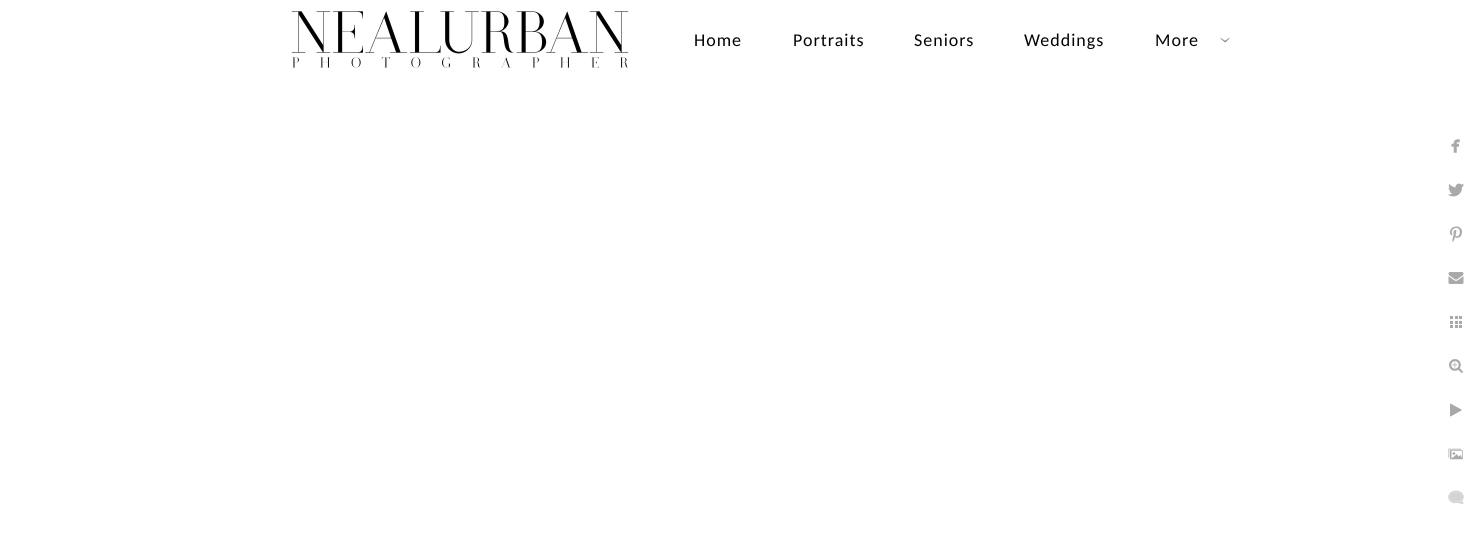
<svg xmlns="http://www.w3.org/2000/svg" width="1483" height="544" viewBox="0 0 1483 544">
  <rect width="100%" height="100%" fill="#ffffff"/>
  <image x="291" y="11" width="338" height="57" href="img1.png"/>
  <text x="694" y="46" font-family="Carlito" font-size="18" letter-spacing="1" fill="#000000">Home</text>
  <text x="793" y="46" font-family="Carlito" font-size="18" letter-spacing="1" fill="#000000">Portraits</text>
  <text x="914" y="46" font-family="Carlito" font-size="18" letter-spacing="1" fill="#000000">Seniors</text>
  <text x="1024" y="46" font-family="Carlito" font-size="18" letter-spacing="1" fill="#000000">Weddings</text>
  <text x="1155" y="46" font-family="Carlito" font-size="18" letter-spacing="1" fill="#000000">More</text>
  <image x="1220" y="37" width="10" height="6" href="img2.png"/>
  <image x="1451" y="139" width="9" height="14" href="img3.png"/>
  <image x="1448" y="183" width="16" height="14" href="img4.png"/>
  <image x="1450" y="226" width="12" height="16" href="img5.png"/>
  <image x="1448" y="272" width="16" height="12" href="img6.png"/>
  <image x="1450" y="316" width="12" height="12" href="img7.png"/>
  <image x="1449" y="359" width="14" height="14" href="img8.png"/>
  <image x="1450" y="403" width="12" height="14" href="img9.png"/>
  <image x="1448" y="448" width="15" height="12" href="img10.png"/>
  <image x="1448" y="490" width="16" height="14" href="img11.png"/>
</svg>
